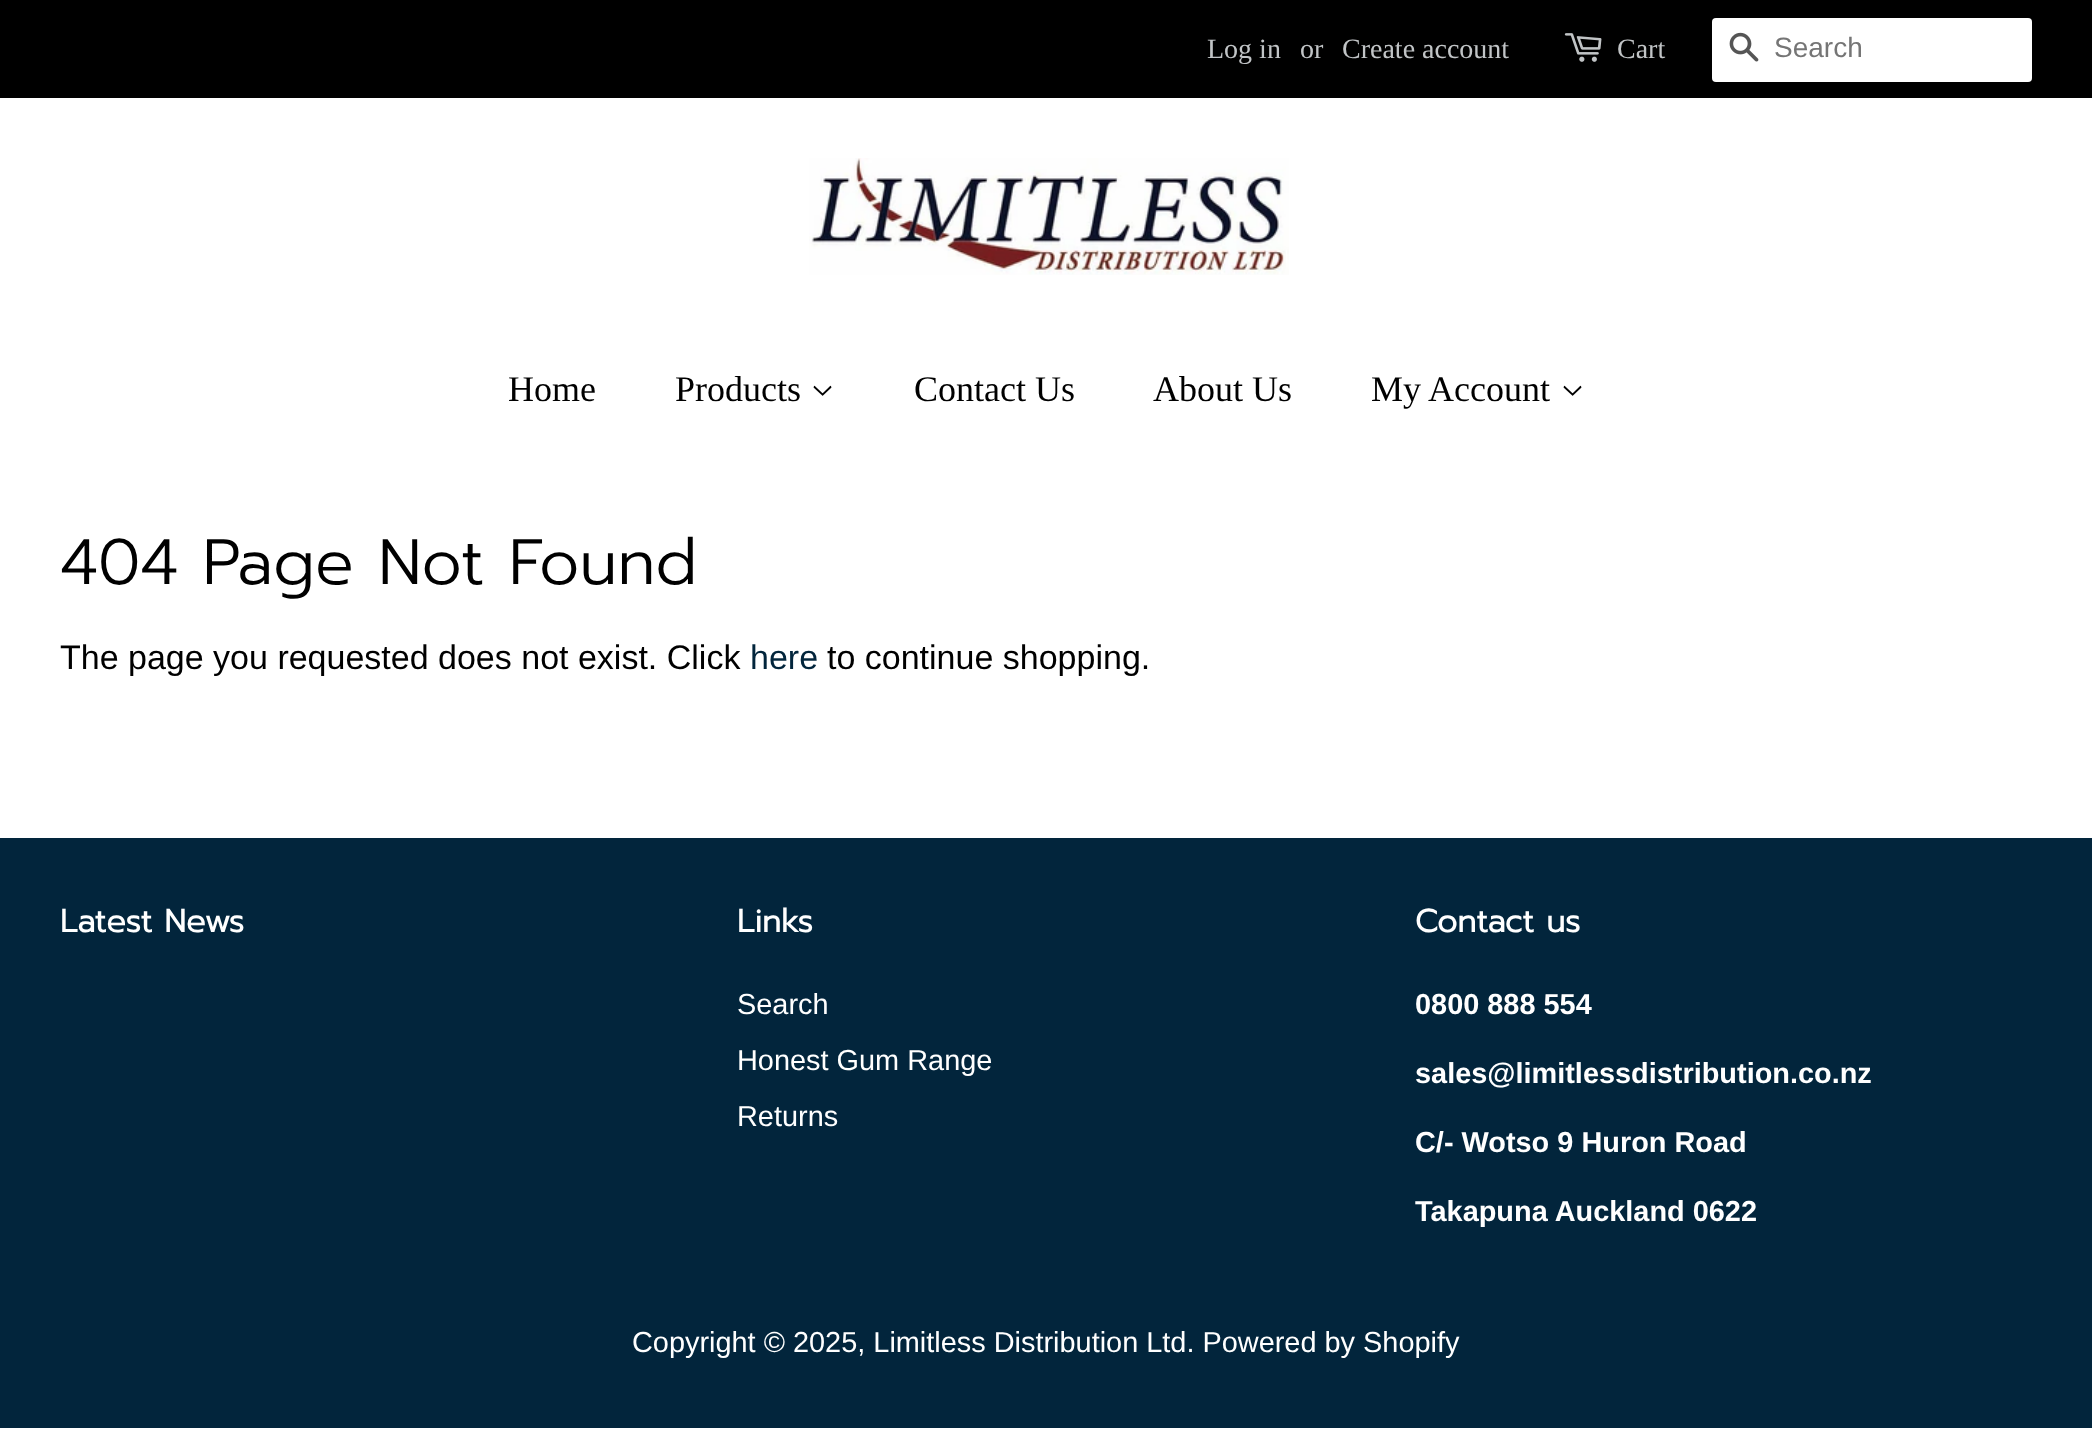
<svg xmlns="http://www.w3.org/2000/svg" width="2092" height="1437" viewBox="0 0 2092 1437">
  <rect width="100%" height="100%" fill="#ffffff"/>
  <rect x="0" y="0" width="2092" height="98" fill="#000000"/>
  <text x="1207" y="58" font-family="Liberation Serif" font-size="28" fill="#c1c4c6">Log in</text>
  <text x="1300" y="58" font-family="Liberation Serif" font-size="28" fill="#c1c4c6">or</text>
  <text x="1342" y="58" font-family="Liberation Serif" font-size="28" fill="#c1c4c6">Create account</text>
  <image x="1564" y="33" width="38" height="29" href="img1.png"/>
  <text x="1617" y="58" font-family="Liberation Serif" font-size="28" fill="#c1c4c6">Cart</text>
  <rect x="1712" y="18" width="320" height="64" rx="4" fill="#ffffff"/>
  <image x="1729" y="32" width="30" height="30" href="img2.png"/>
  <text x="1774" y="57" font-family="Arimo" font-size="28" fill="#757575">Search</text>
  <image x="809" y="158" width="480" height="117" href="img3.png"/>
  <text x="508" y="401" font-family="Liberation Serif" font-size="36" fill="#000000">Home</text>
  <text x="675" y="401" font-family="Liberation Serif" font-size="36" fill="#000000">Products</text>
  <image x="813" y="385" width="19" height="11" href="img4.png"/>
  <text x="914" y="401" font-family="Liberation Serif" font-size="36" fill="#000000">Contact Us</text>
  <text x="1153" y="401" font-family="Liberation Serif" font-size="36" fill="#000000">About Us</text>
  <text x="1371" y="401" font-family="Liberation Serif" font-size="36" fill="#000000">My Account</text>
  <image x="1563" y="385" width="19" height="11" href="img4.png"/>
  <text x="60" y="584" font-family="Prompt" font-size="64" font-weight="300" fill="#000000">404 Page Not Found</text>
  <text x="60" y="669" font-family="Arimo" font-size="34" fill="#000000">The page you requested does not exist. Click</text>
  <text x="750" y="669" font-family="Arimo" font-size="34" fill="#02253c">here</text>
  <text x="827" y="669" font-family="Arimo" font-size="34" fill="#000000">to continue shopping.</text>
  <rect x="0" y="838" width="2092" height="590" fill="#02253c"/>
  <text x="60" y="932" font-family="Prompt" font-size="32" font-weight="bold" fill="#ffffff">Latest News</text>
  <text x="737" y="932" font-family="Prompt" font-size="32" font-weight="bold" fill="#ffffff">Links</text>
  <text x="737" y="1014" font-family="Arimo" font-size="28.9" fill="#ffffff">Search</text>
  <text x="737" y="1070" font-family="Arimo" font-size="28.9" fill="#ffffff">Honest Gum Range</text>
  <text x="737" y="1126" font-family="Arimo" font-size="28.9" fill="#ffffff">Returns</text>
  <text x="1415" y="932" font-family="Prompt" font-size="32" font-weight="bold" fill="#ffffff">Contact us</text>
  <text x="1415" y="1014" font-family="Arimo" font-size="28.9" font-weight="bold" fill="#ffffff">0800 888 554</text>
  <text x="1415" y="1083" font-family="Arimo" font-size="28.9" font-weight="bold" fill="#ffffff">sales@limitlessdistribution.co.nz</text>
  <text x="1415" y="1152" font-family="Arimo" font-size="28.9" font-weight="bold" fill="#ffffff">C/- Wotso 9 Huron Road</text>
  <text x="1415" y="1221" font-family="Arimo" font-size="28.9" font-weight="bold" fill="#ffffff">Takapuna Auckland 0622</text>
  <text x="632" y="1352" font-family="Arimo" font-size="28.9" fill="#ffffff">Copyright © 2025, Limitless Distribution Ltd. Powered by Shopify</text>
</svg>
